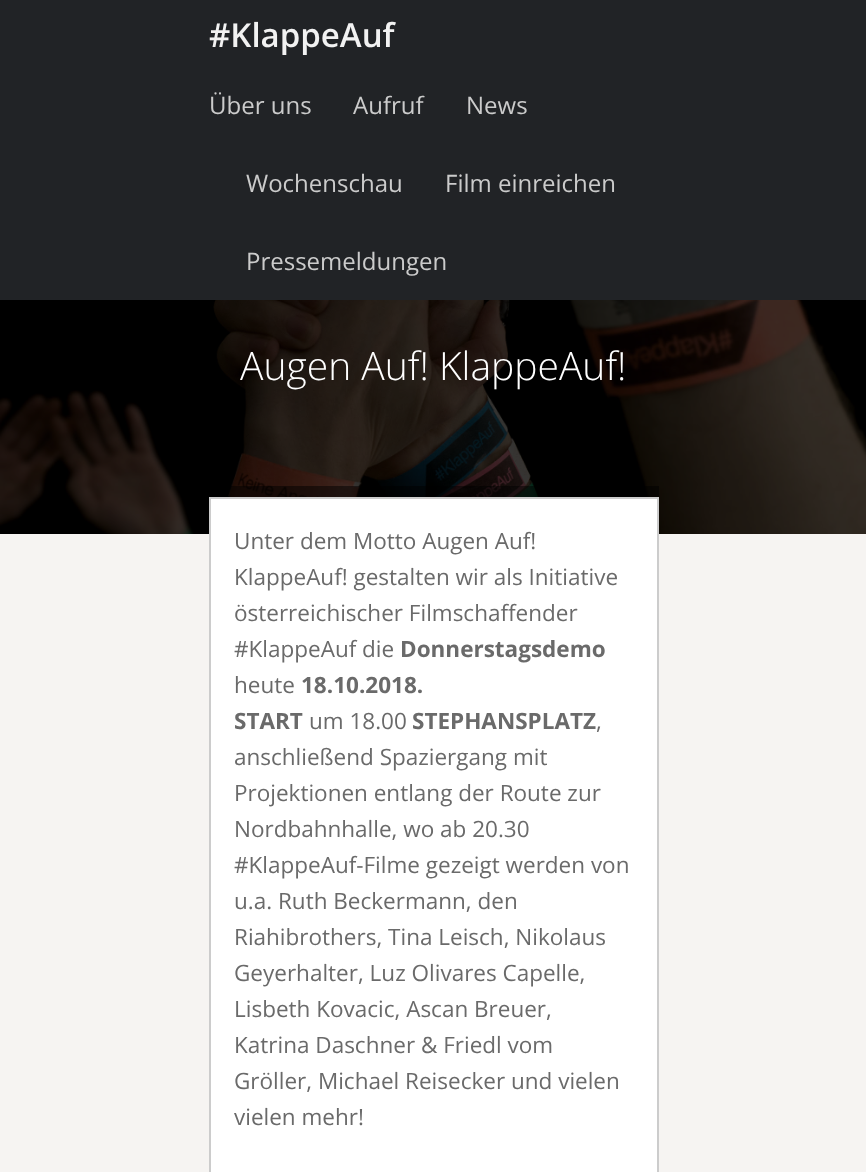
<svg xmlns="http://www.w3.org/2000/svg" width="866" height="1172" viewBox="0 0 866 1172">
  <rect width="100%" height="100%" fill="#f6f4f2"/>
  <rect x="0" y="0" width="866" height="300" fill="#212326"/>
  <text x="209" y="47" font-family="Open Sans" font-size="33" font-weight="600" fill="#f2f2f2">#KlappeAuf</text>
  <text x="209" y="114" font-family="Open Sans" font-size="24" fill="#cbcbcb">Über uns</text>
  <text x="353" y="114" font-family="Open Sans" font-size="24" fill="#cbcbcb">Aufruf</text>
  <text x="466" y="114" font-family="Open Sans" font-size="24" fill="#cbcbcb">News</text>
  <text x="246" y="192" font-family="Open Sans" font-size="24" fill="#cbcbcb">Wochenschau</text>
  <text x="445" y="192" font-family="Open Sans" font-size="24" fill="#cbcbcb">Film einreichen</text>
  <text x="246" y="270" font-family="Open Sans" font-size="24" fill="#cbcbcb">Pressemeldungen</text>
  <image x="0" y="300" width="866" height="234" href="img1.png"/>
  <text x="240" y="380" font-family="Open Sans" font-size="39" font-weight="300" fill="#ffffff">Augen Auf! KlappeAuf!</text>
  <rect x="228" y="486" width="431" height="11" fill="#000000" fill-opacity="0.5"/>
  <rect x="210" y="498" width="448" height="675" fill="#ffffff" stroke="#cccccc" stroke-width="2"/>
  <text x="234" y="549" font-family="Open Sans" font-size="22.5" fill="#6a6a6a">Unter dem Motto Augen Auf!</text>
  <text x="234" y="585" font-family="Open Sans" font-size="22.5" fill="#6a6a6a">KlappeAuf! gestalten wir als Initiative</text>
  <text x="234" y="621" font-family="Open Sans" font-size="22.5" fill="#6a6a6a">österreichischer Filmschaffender</text>
  <text x="234" y="657" font-family="Open Sans" font-size="22.5" fill="#6a6a6a">#KlappeAuf die</text>
  <text x="400" y="657" font-family="Open Sans" font-size="22.5" font-weight="bold" fill="#6a6a6a">Donnerstagsdemo</text>
  <text x="234" y="693" font-family="Open Sans" font-size="22.5" fill="#6a6a6a">heute</text>
  <text x="301" y="693" font-family="Open Sans" font-size="22.5" font-weight="bold" fill="#6a6a6a">18.10.2018.</text>
  <text x="234" y="729" font-family="Open Sans" font-size="22.5" font-weight="bold" fill="#6a6a6a">START</text>
  <text x="309" y="729" font-family="Open Sans" font-size="22.5" fill="#6a6a6a">um 18.00</text>
  <text x="412" y="729" font-family="Open Sans" font-size="22.5" font-weight="bold" fill="#6a6a6a">STEPHANSPLATZ</text>
  <text x="596" y="729" font-family="Open Sans" font-size="22.5" fill="#6a6a6a">,</text>
  <text x="234" y="765" font-family="Open Sans" font-size="22.5" fill="#6a6a6a">anschließend Spaziergang mit</text>
  <text x="234" y="801" font-family="Open Sans" font-size="22.5" fill="#6a6a6a">Projektionen entlang der Route zur</text>
  <text x="234" y="837" font-family="Open Sans" font-size="22.5" fill="#6a6a6a">Nordbahnhalle, wo ab 20.30</text>
  <text x="234" y="873" font-family="Open Sans" font-size="22.5" fill="#6a6a6a">#KlappeAuf-Filme gezeigt werden von</text>
  <text x="234" y="909" font-family="Open Sans" font-size="22.5" fill="#6a6a6a">u.a. Ruth Beckermann, den</text>
  <text x="234" y="945" font-family="Open Sans" font-size="22.5" fill="#6a6a6a">Riahibrothers, Tina Leisch, Nikolaus</text>
  <text x="234" y="981" font-family="Open Sans" font-size="22.5" fill="#6a6a6a">Geyerhalter, Luz Olivares Capelle,</text>
  <text x="234" y="1017" font-family="Open Sans" font-size="22.5" fill="#6a6a6a">Lisbeth Kovacic, Ascan Breuer,</text>
  <text x="234" y="1053" font-family="Open Sans" font-size="22.5" fill="#6a6a6a">Katrina Daschner &amp; Friedl vom</text>
  <text x="234" y="1089" font-family="Open Sans" font-size="22.5" fill="#6a6a6a">Gröller, Michael Reisecker und vielen</text>
  <text x="234" y="1125" font-family="Open Sans" font-size="22.5" fill="#6a6a6a">vielen mehr!</text>
</svg>
